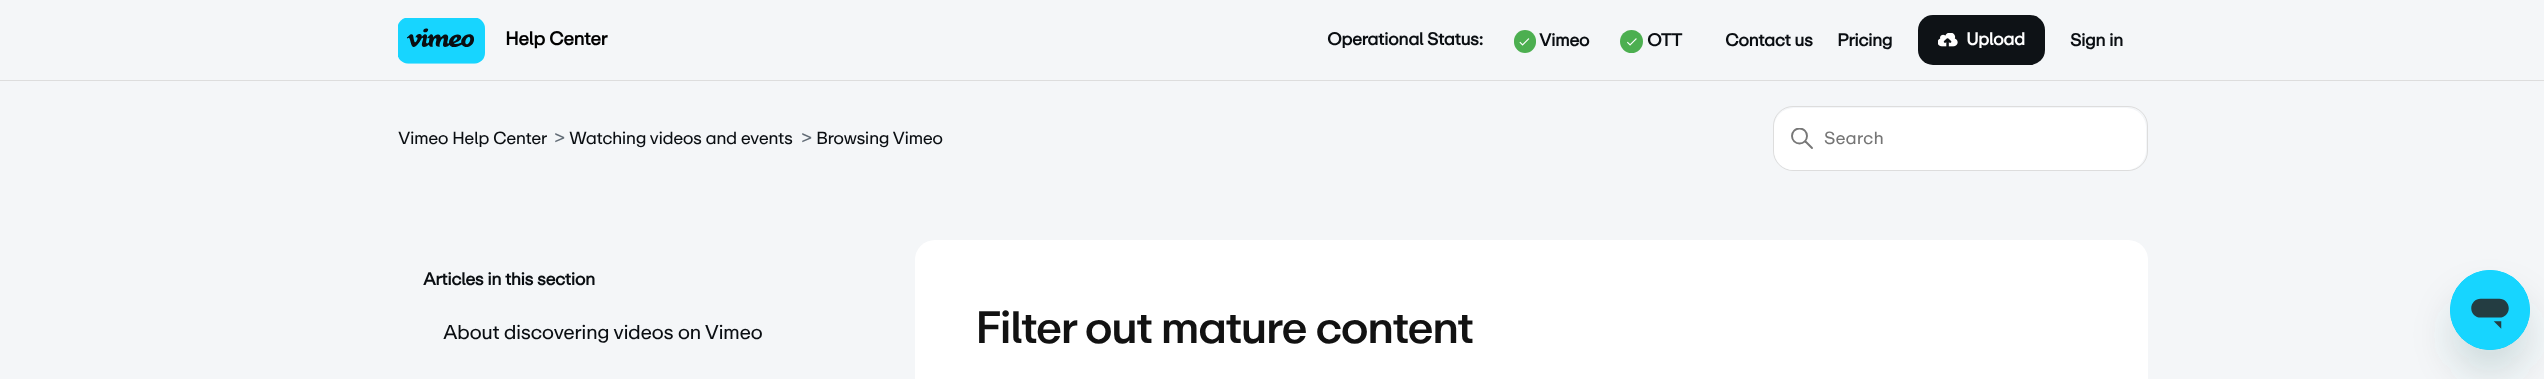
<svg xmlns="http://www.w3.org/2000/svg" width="2544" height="379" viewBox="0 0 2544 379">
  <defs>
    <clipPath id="clip1"><rect x="1791" y="128" width="23" height="22"/></clipPath>
    <filter id="blur1" x="-50%" y="-200%" width="200%" height="500%"><feGaussianBlur stdDeviation="19"/></filter>
  </defs>
  <rect width="100%" height="100%" fill="#f4f6f8"/>
  <image x="398" y="18" width="87" height="46" href="img1.png"/>
  <text x="505" y="45" font-family="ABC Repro" font-size="18.75" font-weight="bold" letter-spacing="-0.5" fill="#000000">Help Center</text>
  <text x="1327" y="45" font-family="ABC Repro" font-size="17.5" font-weight="bold" letter-spacing="-0.5" fill="#0a0e12">Operational Status:</text>
  <rect x="1514" y="30" width="22" height="23" rx="11" fill="#4caf50"/>
  <image x="1519" y="38" width="11" height="8" href="img2.png"/>
  <text x="1539" y="46" font-family="ABC Repro" font-size="17.5" font-weight="bold" letter-spacing="-0.5" fill="#0a0e12">Vimeo</text>
  <circle cx="1631.5" cy="41.5" r="11.5" fill="#4caf50"/>
  <image x="1627" y="38" width="10" height="8" href="img3.png"/>
  <text x="1647" y="46" font-family="ABC Repro" font-size="17.5" font-weight="bold" letter-spacing="-0.5" fill="#0a0e12">OTT</text>
  <text x="1725" y="46" font-family="ABC Repro" font-size="17.5" font-weight="bold" letter-spacing="-0.5" fill="#0a0e12">Contact us</text>
  <text x="1837" y="46" font-family="ABC Repro" font-size="17.5" font-weight="bold" letter-spacing="-0.5" fill="#0a0e12">Pricing</text>
  <rect x="1918" y="15" width="127" height="50" rx="15" fill="#0e1216"/>
  <image x="1938" y="33" width="20" height="14" href="img4.png"/>
  <text x="1966" y="45" font-family="ABC Repro" font-size="17.5" font-weight="bold" letter-spacing="-0.5" fill="#ffffff">Upload</text>
  <text x="2070" y="46" font-family="ABC Repro" font-size="17.5" font-weight="bold" letter-spacing="-0.5" fill="#0a0e12">Sign in</text>
  <rect x="0" y="80" width="2544" height="1" fill="#dddddd"/>
  <text x="398" y="144" font-family="ABC Repro" font-size="17.5" letter-spacing="-0.5" fill="#0a0e12">Vimeo Help Center</text>
  <text x="554" y="142" font-family="ABC Repro" font-size="17.5" letter-spacing="-0.5" fill="#626c76">&gt;</text>
  <text x="569" y="144" font-family="ABC Repro" font-size="17.5" letter-spacing="-0.5" fill="#0a0e12">Watching videos and events</text>
  <text x="801" y="142" font-family="ABC Repro" font-size="17.5" letter-spacing="-0.5" fill="#626c76">&gt;</text>
  <text x="816" y="144" font-family="ABC Repro" font-size="17.5" letter-spacing="-0.5" fill="#0a0e12">Browsing Vimeo</text>
  <rect x="1773.5" y="106.5" width="374" height="64" rx="19.5" fill="none" stroke="#dddddd"/>
  <rect x="1774" y="108" width="372" height="62" rx="20" fill="#ffffff"/>
  <g clip-path="url(#clip1)">
    <circle cx="1799.5" cy="136" r="7.5" fill="none" stroke="#777777" stroke-width="1.9"/>
  </g>
  <path d="M1812 148L1805.5 141.5" fill="none" stroke="#777777" stroke-width="1.9" stroke-linecap="round"/>
  <text x="1824" y="144" font-family="ABC Repro" font-size="17.5" fill="#757575">Search</text>
  <text x="423" y="285" font-family="ABC Repro" font-size="17.5" font-weight="bold" letter-spacing="-0.5" fill="#0a0e12">Articles in this section</text>
  <text x="443" y="339" font-family="ABC Repro" font-size="20" letter-spacing="-0.5" fill="#0a0e12">About discovering videos on Vimeo</text>
  <rect x="915" y="240" width="1233" height="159" rx="20" fill="#ffffff"/>
  <text x="975" y="343" font-family="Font" font-size="45" font-weight="500" letter-spacing="-1.8" fill="#121212">Filter out mature content</text>
  <rect x="2450" y="295" width="80" height="80" rx="40" fill="#17494d" fill-opacity="0.15" filter="url(#blur1)"/>
  <image x="2450" y="270" width="80" height="80" href="img5.png"/>
</svg>
